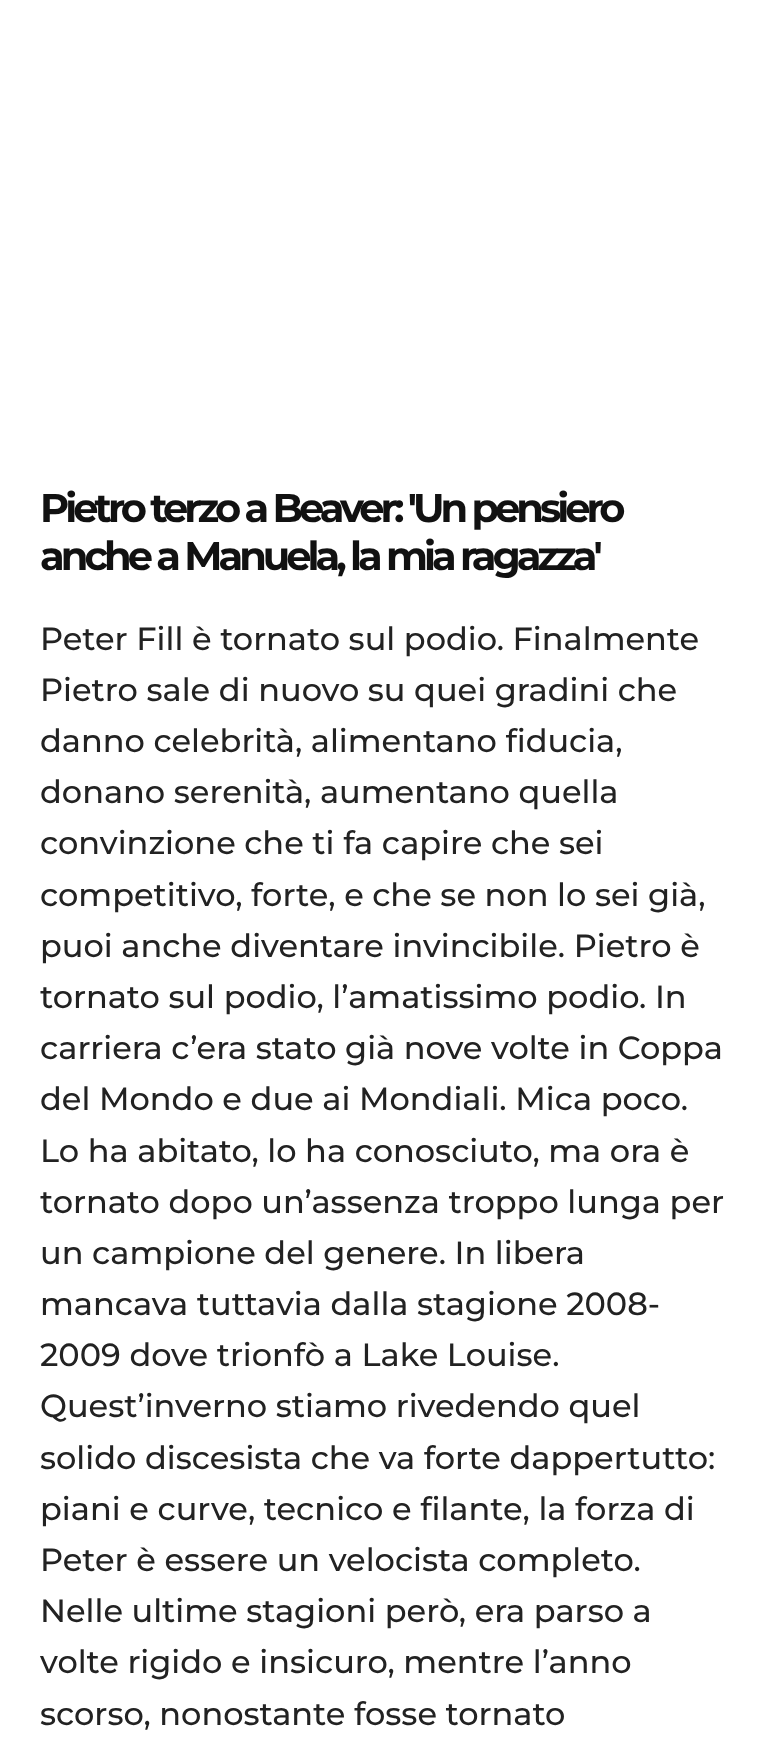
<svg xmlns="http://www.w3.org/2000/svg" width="766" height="1758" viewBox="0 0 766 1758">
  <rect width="100%" height="100%" fill="#ffffff"/>
  <text x="40" y="522" font-family="Montserrat" font-size="40" font-weight="bold" letter-spacing="-4" fill="#111111">Pietro terzo a Beaver: 'Un pensiero</text>
  <text x="40" y="570" font-family="Montserrat" font-size="40" font-weight="bold" letter-spacing="-4" fill="#111111">anche a Manuela, la mia ragazza'</text>
  <text x="40" y="650" font-family="Montserrat" font-size="32" font-weight="500" fill="#222222">Peter Fill è tornato sul podio. Finalmente</text>
  <text x="40" y="701" font-family="Montserrat" font-size="32" font-weight="500" fill="#222222">Pietro sale di nuovo su quei gradini che</text>
  <text x="40" y="752" font-family="Montserrat" font-size="32" font-weight="500" fill="#222222">danno celebrità, alimentano fiducia,</text>
  <text x="40" y="803" font-family="Montserrat" font-size="32" font-weight="500" fill="#222222">donano serenità, aumentano quella</text>
  <text x="40" y="854" font-family="Montserrat" font-size="32" font-weight="500" fill="#222222">convinzione che ti fa capire che sei</text>
  <text x="40" y="906" font-family="Montserrat" font-size="32" font-weight="500" fill="#222222">competitivo, forte, e che se non lo sei già,</text>
  <text x="40" y="957" font-family="Montserrat" font-size="32" font-weight="500" fill="#222222">puoi anche diventare invincibile. Pietro è</text>
  <text x="40" y="1008" font-family="Montserrat" font-size="32" font-weight="500" fill="#222222">tornato sul podio, l’amatissimo podio. In</text>
  <text x="40" y="1059" font-family="Montserrat" font-size="32" font-weight="500" fill="#222222">carriera c’era stato già nove volte in Coppa</text>
  <text x="40" y="1110" font-family="Montserrat" font-size="32" font-weight="500" fill="#222222">del Mondo e due ai Mondiali. Mica poco.</text>
  <text x="40" y="1162" font-family="Montserrat" font-size="32" font-weight="500" fill="#222222">Lo ha abitato, lo ha conosciuto, ma ora è</text>
  <text x="40" y="1213" font-family="Montserrat" font-size="32" font-weight="500" fill="#222222">tornato dopo un’assenza troppo lunga per</text>
  <text x="40" y="1264" font-family="Montserrat" font-size="32" font-weight="500" fill="#222222">un campione del genere. In libera</text>
  <text x="40" y="1315" font-family="Montserrat" font-size="32" font-weight="500" fill="#222222">mancava tuttavia dalla stagione 2008-</text>
  <text x="40" y="1366" font-family="Montserrat" font-size="32" font-weight="500" fill="#222222">2009 dove trionfò a Lake Louise.</text>
  <text x="40" y="1417" font-family="Montserrat" font-size="32" font-weight="500" fill="#222222">Quest’inverno stiamo rivedendo quel</text>
  <text x="40" y="1469" font-family="Montserrat" font-size="32" font-weight="500" fill="#222222">solido discesista che va forte dappertutto:</text>
  <text x="40" y="1520" font-family="Montserrat" font-size="32" font-weight="500" fill="#222222">piani e curve, tecnico e filante, la forza di</text>
  <text x="40" y="1571" font-family="Montserrat" font-size="32" font-weight="500" fill="#222222">Peter è essere un velocista completo.</text>
  <text x="40" y="1622" font-family="Montserrat" font-size="32" font-weight="500" fill="#222222">Nelle ultime stagioni però, era parso a</text>
  <text x="40" y="1673" font-family="Montserrat" font-size="32" font-weight="500" fill="#222222">volte rigido e insicuro, mentre l’anno</text>
  <text x="40" y="1725" font-family="Montserrat" font-size="32" font-weight="500" fill="#222222">scorso, nonostante fosse tornato</text>
</svg>
